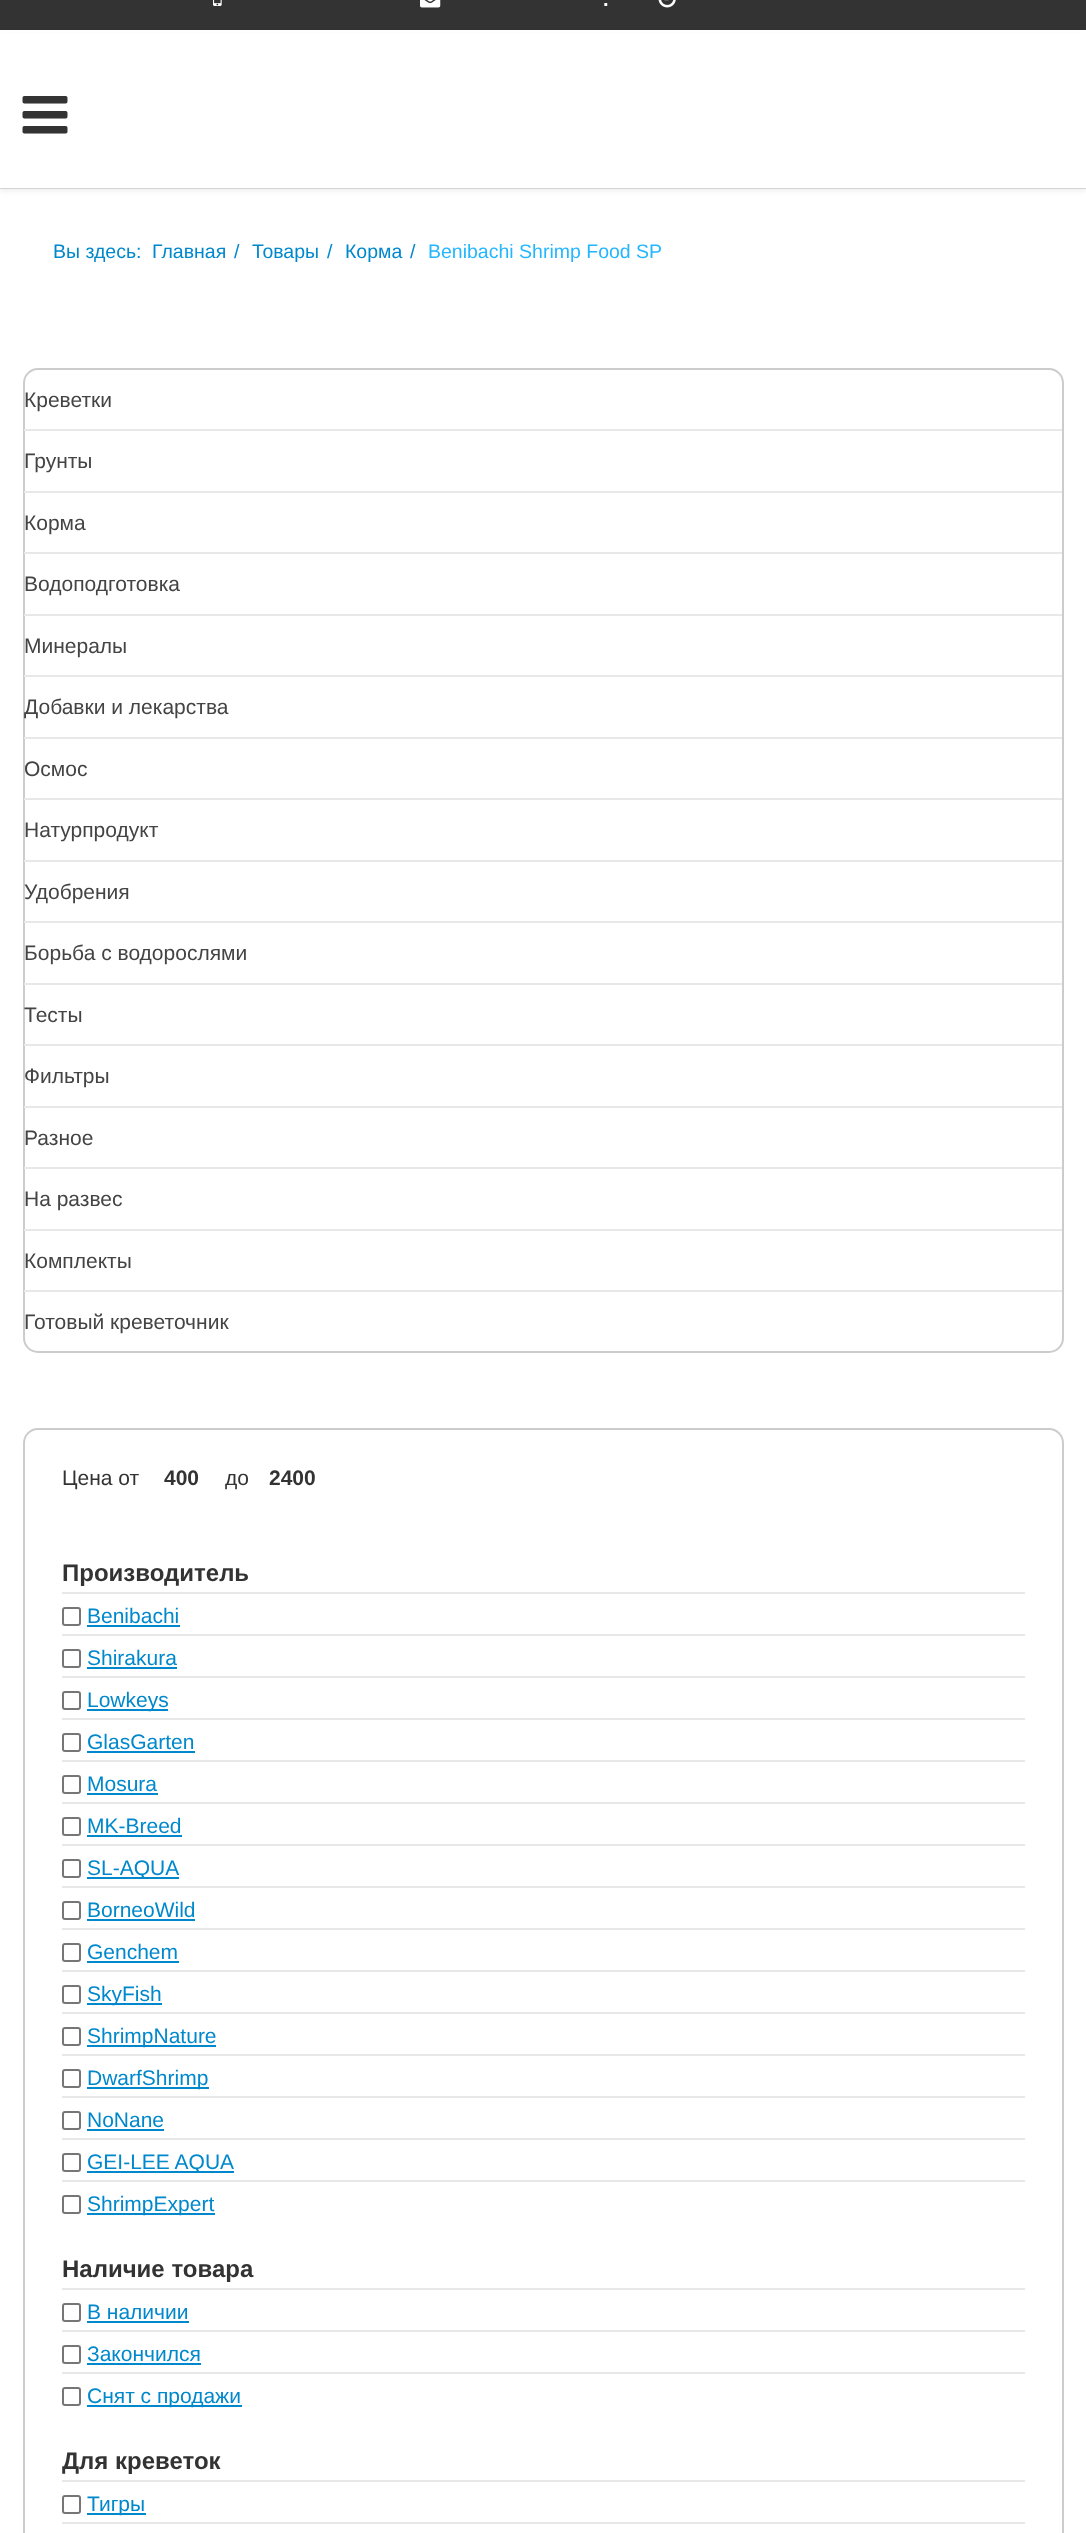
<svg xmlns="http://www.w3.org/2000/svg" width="1086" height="2533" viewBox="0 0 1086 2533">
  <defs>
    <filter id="blur1" x="-50%" y="-200%" width="200%" height="500%"><feGaussianBlur stdDeviation="2"/></filter>
  </defs>
  <rect width="100%" height="100%" fill="#ffffff"/>
  <rect x="0" y="0" width="1086" height="30" fill="#333333"/>
  <image x="213" y="0" width="9" height="6" href="img1.png"/>
  <image x="420" y="0" width="21" height="8" href="img2.png"/>
  <text x="603" y="6" font-family="Liberation Sans" font-size="20" font-weight="bold" fill="#ffffff">.</text>
  <image x="658" y="0" width="18" height="8" href="img3.png"/>
  <rect x="1" y="123" width="1084" height="65" fill="none" stroke="#dddddd" stroke-width="2"/>
  <rect x="0" y="35" width="1086" height="157" fill="#000000" fill-opacity="0.05" filter="url(#blur1)"/>
  <rect x="0" y="33" width="1086" height="155" fill="#ffffff"/>
  <image x="22" y="96" width="46" height="38" href="img4.png"/>
  <text x="53" y="258" font-family="Liberation Sans" font-size="19.5" fill="#0088cc">Вы здесь:</text>
  <text x="152" y="258" font-family="Liberation Sans" font-size="19.5" fill="#0088cc">Главная</text>
  <text x="234" y="258" font-family="Liberation Sans" font-size="19.5" fill="#0088cc">/</text>
  <text x="252" y="258" font-family="Liberation Sans" font-size="19.5" fill="#0088cc">Товары</text>
  <text x="327" y="258" font-family="Liberation Sans" font-size="19.5" fill="#0088cc">/</text>
  <text x="345" y="258" font-family="Liberation Sans" font-size="19.5" fill="#0088cc">Корма</text>
  <text x="410" y="258" font-family="Liberation Sans" font-size="19.5" fill="#0088cc">/</text>
  <text x="428" y="258" font-family="Liberation Sans" font-size="19.5" fill="#24b6ff">Benibachi Shrimp Food SP</text>
  <rect x="24" y="369" width="1039" height="983" rx="14" fill="none" stroke="#cccccc" stroke-width="2"/>
  <rect x="24" y="429" width="1038" height="2" fill="#e8e8e8"/>
  <text x="24" y="407" font-family="Liberation Sans" font-size="21" fill="#444444">Креветки</text>
  <rect x="24" y="491" width="1038" height="2" fill="#e8e8e8"/>
  <text x="24" y="468" font-family="Liberation Sans" font-size="21" fill="#444444">Грунты</text>
  <rect x="24" y="552" width="1038" height="2" fill="#e8e8e8"/>
  <text x="24" y="530" font-family="Liberation Sans" font-size="21" fill="#444444">Корма</text>
  <rect x="24" y="614" width="1038" height="2" fill="#e8e8e8"/>
  <text x="24" y="591" font-family="Liberation Sans" font-size="21" fill="#444444">Водоподготовка</text>
  <rect x="24" y="675" width="1038" height="2" fill="#e8e8e8"/>
  <text x="24" y="653" font-family="Liberation Sans" font-size="21" fill="#444444">Минералы</text>
  <rect x="24" y="737" width="1038" height="2" fill="#e8e8e8"/>
  <text x="24" y="714" font-family="Liberation Sans" font-size="21" fill="#444444">Добавки и лекарства</text>
  <rect x="24" y="798" width="1038" height="2" fill="#e8e8e8"/>
  <text x="24" y="776" font-family="Liberation Sans" font-size="21" fill="#444444">Осмос</text>
  <rect x="24" y="860" width="1038" height="2" fill="#e8e8e8"/>
  <text x="24" y="837" font-family="Liberation Sans" font-size="21" fill="#444444">Натурпродукт</text>
  <rect x="24" y="921" width="1038" height="2" fill="#e8e8e8"/>
  <text x="24" y="899" font-family="Liberation Sans" font-size="21" fill="#444444">Удобрения</text>
  <rect x="24" y="983" width="1038" height="2" fill="#e8e8e8"/>
  <text x="24" y="960" font-family="Liberation Sans" font-size="21" fill="#444444">Борьба с водорослями</text>
  <rect x="24" y="1044" width="1038" height="2" fill="#e8e8e8"/>
  <text x="24" y="1022" font-family="Liberation Sans" font-size="21" fill="#444444">Тесты</text>
  <rect x="24" y="1106" width="1038" height="2" fill="#e8e8e8"/>
  <text x="24" y="1083" font-family="Liberation Sans" font-size="21" fill="#444444">Фильтры</text>
  <rect x="24" y="1167" width="1038" height="2" fill="#e8e8e8"/>
  <text x="24" y="1145" font-family="Liberation Sans" font-size="21" fill="#444444">Разное</text>
  <rect x="24" y="1229" width="1038" height="2" fill="#e8e8e8"/>
  <text x="24" y="1206" font-family="Liberation Sans" font-size="21" fill="#444444">На развес</text>
  <rect x="24" y="1290" width="1038" height="2" fill="#e8e8e8"/>
  <text x="24" y="1268" font-family="Liberation Sans" font-size="21" fill="#444444">Комплекты</text>
  <text x="24" y="1329" font-family="Liberation Sans" font-size="21" fill="#444444">Готовый креветочник</text>
  <rect x="24" y="1429" width="1039" height="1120" rx="14" fill="none" stroke="#cccccc" stroke-width="2"/>
  <text x="62" y="1485" font-family="Liberation Sans" font-size="21" fill="#333333">Цена от</text>
  <text x="164" y="1485" font-family="Liberation Sans" font-size="21" font-weight="bold" fill="#333333">400</text>
  <text x="225" y="1485" font-family="Liberation Sans" font-size="21" fill="#333333">до</text>
  <text x="269" y="1485" font-family="Liberation Sans" font-size="21" font-weight="bold" fill="#333333">2400</text>
  <rect x="62" y="1592" width="963" height="2" fill="#e8e8e8"/>
  <text x="62" y="1581" font-family="Liberation Sans" font-size="24" font-weight="bold" fill="#333333">Производитель</text>
  <rect x="62" y="1634" width="963" height="2" fill="#e8e8e8"/>
  <rect x="63" y="1608" width="17" height="17" rx="2" fill="none" stroke="#767676" stroke-width="2"/>
  <text x="87" y="1623" font-family="Liberation Sans" font-size="21" fill="#0088cc">Benibachi</text>
  <rect x="87" y="1625" width="93" height="2" fill="#0088cc"/>
  <rect x="62" y="1676" width="963" height="2" fill="#e8e8e8"/>
  <rect x="63" y="1650" width="17" height="17" rx="2" fill="none" stroke="#767676" stroke-width="2"/>
  <text x="87" y="1665" font-family="Liberation Sans" font-size="21" fill="#0088cc">Shirakura</text>
  <rect x="87" y="1667" width="90" height="2" fill="#0088cc"/>
  <rect x="62" y="1718" width="963" height="2" fill="#e8e8e8"/>
  <rect x="63" y="1692" width="17" height="17" rx="2" fill="none" stroke="#767676" stroke-width="2"/>
  <rect x="87" y="1709" width="81" height="2" fill="#0088cc"/>
  <text x="87" y="1707" font-family="Liberation Sans" font-size="21" fill="#0088cc">Lowkeys</text>
  <rect x="62" y="1760" width="963" height="2" fill="#e8e8e8"/>
  <rect x="63" y="1734" width="17" height="17" rx="2" fill="none" stroke="#767676" stroke-width="2"/>
  <text x="87" y="1749" font-family="Liberation Sans" font-size="21" fill="#0088cc">GlasGarten</text>
  <rect x="87" y="1751" width="108" height="2" fill="#0088cc"/>
  <rect x="62" y="1802" width="963" height="2" fill="#e8e8e8"/>
  <rect x="63" y="1776" width="17" height="17" rx="2" fill="none" stroke="#767676" stroke-width="2"/>
  <text x="87" y="1791" font-family="Liberation Sans" font-size="21" fill="#0088cc">Mosura</text>
  <rect x="87" y="1793" width="71" height="2" fill="#0088cc"/>
  <rect x="62" y="1844" width="963" height="2" fill="#e8e8e8"/>
  <rect x="63" y="1818" width="17" height="17" rx="2" fill="none" stroke="#767676" stroke-width="2"/>
  <text x="87" y="1833" font-family="Liberation Sans" font-size="21" fill="#0088cc">MK-Breed</text>
  <rect x="87" y="1835" width="95" height="2" fill="#0088cc"/>
  <rect x="62" y="1886" width="963" height="2" fill="#e8e8e8"/>
  <rect x="63" y="1860" width="17" height="17" rx="2" fill="none" stroke="#767676" stroke-width="2"/>
  <rect x="87" y="1877" width="92" height="2" fill="#0088cc"/>
  <text x="87" y="1875" font-family="Liberation Sans" font-size="21" fill="#0088cc">SL-AQUA</text>
  <rect x="62" y="1928" width="963" height="2" fill="#e8e8e8"/>
  <rect x="63" y="1902" width="17" height="17" rx="2" fill="none" stroke="#767676" stroke-width="2"/>
  <text x="87" y="1917" font-family="Liberation Sans" font-size="21" fill="#0088cc">BorneoWild</text>
  <rect x="87" y="1919" width="108" height="2" fill="#0088cc"/>
  <rect x="62" y="1970" width="963" height="2" fill="#e8e8e8"/>
  <rect x="63" y="1944" width="17" height="17" rx="2" fill="none" stroke="#767676" stroke-width="2"/>
  <text x="87" y="1959" font-family="Liberation Sans" font-size="21" fill="#0088cc">Genchem</text>
  <rect x="87" y="1961" width="92" height="2" fill="#0088cc"/>
  <rect x="62" y="2012" width="963" height="2" fill="#e8e8e8"/>
  <rect x="63" y="1986" width="17" height="17" rx="2" fill="none" stroke="#767676" stroke-width="2"/>
  <rect x="87" y="2003" width="75" height="2" fill="#0088cc"/>
  <text x="87" y="2001" font-family="Liberation Sans" font-size="21" fill="#0088cc">SkyFish</text>
  <rect x="62" y="2054" width="963" height="2" fill="#e8e8e8"/>
  <rect x="63" y="2028" width="17" height="17" rx="2" fill="none" stroke="#767676" stroke-width="2"/>
  <rect x="87" y="2045" width="129" height="2" fill="#0088cc"/>
  <text x="87" y="2043" font-family="Liberation Sans" font-size="21" fill="#0088cc">ShrimpNature</text>
  <rect x="62" y="2096" width="963" height="2" fill="#e8e8e8"/>
  <rect x="63" y="2070" width="17" height="17" rx="2" fill="none" stroke="#767676" stroke-width="2"/>
  <rect x="87" y="2087" width="122" height="2" fill="#0088cc"/>
  <text x="87" y="2085" font-family="Liberation Sans" font-size="21" fill="#0088cc">DwarfShrimp</text>
  <rect x="62" y="2138" width="963" height="2" fill="#e8e8e8"/>
  <rect x="63" y="2112" width="17" height="17" rx="2" fill="none" stroke="#767676" stroke-width="2"/>
  <text x="87" y="2127" font-family="Liberation Sans" font-size="21" fill="#0088cc">NoNane</text>
  <rect x="87" y="2129" width="77" height="2" fill="#0088cc"/>
  <rect x="62" y="2180" width="963" height="2" fill="#e8e8e8"/>
  <rect x="63" y="2154" width="17" height="17" rx="2" fill="none" stroke="#767676" stroke-width="2"/>
  <rect x="87" y="2171" width="147" height="2" fill="#0088cc"/>
  <text x="87" y="2169" font-family="Liberation Sans" font-size="21" fill="#0088cc">GEI-LEE AQUA</text>
  <rect x="63" y="2196" width="17" height="17" rx="2" fill="none" stroke="#767676" stroke-width="2"/>
  <rect x="87" y="2213" width="128" height="2" fill="#0088cc"/>
  <text x="87" y="2211" font-family="Liberation Sans" font-size="21" fill="#0088cc">ShrimpExpert</text>
  <rect x="62" y="2288" width="963" height="2" fill="#e8e8e8"/>
  <text x="62" y="2277" font-family="Liberation Sans" font-size="24" font-weight="bold" fill="#333333">Наличие товара</text>
  <rect x="62" y="2330" width="963" height="2" fill="#e8e8e8"/>
  <rect x="63" y="2304" width="17" height="17" rx="2" fill="none" stroke="#767676" stroke-width="2"/>
  <text x="87" y="2319" font-family="Liberation Sans" font-size="21" fill="#0088cc">В наличии</text>
  <rect x="87" y="2321" width="102" height="2" fill="#0088cc"/>
  <rect x="62" y="2372" width="963" height="2" fill="#e8e8e8"/>
  <rect x="63" y="2346" width="17" height="17" rx="2" fill="none" stroke="#767676" stroke-width="2"/>
  <text x="87" y="2361" font-family="Liberation Sans" font-size="21" fill="#0088cc">Закончился</text>
  <rect x="87" y="2363" width="114" height="2" fill="#0088cc"/>
  <rect x="63" y="2388" width="17" height="17" rx="2" fill="none" stroke="#767676" stroke-width="2"/>
  <rect x="87" y="2405" width="155" height="2" fill="#0088cc"/>
  <text x="87" y="2403" font-family="Liberation Sans" font-size="21" fill="#0088cc">Снят с продажи</text>
  <rect x="62" y="2480" width="963" height="2" fill="#e8e8e8"/>
  <text x="62" y="2469" font-family="Liberation Sans" font-size="24" font-weight="bold" fill="#333333">Для креветок</text>
  <rect x="62" y="2522" width="963" height="2" fill="#e8e8e8"/>
  <rect x="63" y="2496" width="17" height="17" rx="2" fill="none" stroke="#767676" stroke-width="2"/>
  <rect x="87" y="2513" width="59" height="2" fill="#0088cc"/>
  <text x="87" y="2511" font-family="Liberation Sans" font-size="21" fill="#0088cc">Тигры</text>
</svg>
